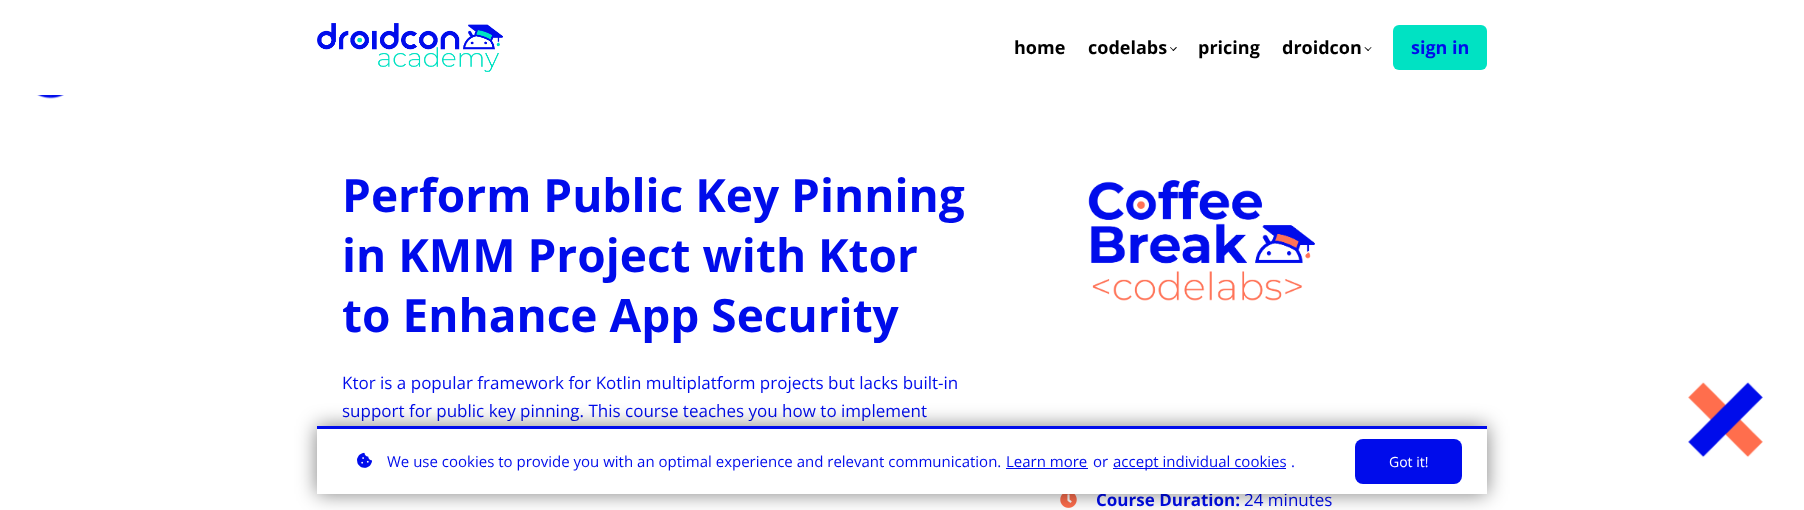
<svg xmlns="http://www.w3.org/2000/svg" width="1804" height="510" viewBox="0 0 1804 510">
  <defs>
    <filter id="blur1" x="-50%" y="-200%" width="200%" height="500%"><feGaussianBlur stdDeviation="10"/></filter>
  </defs>
  <rect width="100%" height="100%" fill="#ffffff"/>
  <image x="317" y="23" width="186" height="49" href="img1.png"/>
  <text x="1014" y="54" font-family="Open Sans" font-size="18" font-weight="bold" fill="#000000">home</text>
  <text x="1088" y="54" font-family="Open Sans" font-size="18" font-weight="bold" fill="#000000">codelabs</text>
  <path d="M1177 47.5L1173.5 51L1172.5 50.5L1176 47Z" fill="#000000"/>
  <path d="M1174 50.5L1173.5 51L1170 47.5L1170.5 47Z" fill="#000000"/>
  <text x="1198" y="54" font-family="Open Sans" font-size="18" font-weight="bold" fill="#000000">pricing</text>
  <text x="1282" y="54" font-family="Open Sans" font-size="18" font-weight="bold" fill="#000000">droidcon</text>
  <path d="M1371.5 47.5L1368 51L1367.5 50.5L1371 47Z" fill="#000000"/>
  <path d="M1369 50.5L1368 51L1364.5 47.5L1365 47Z" fill="#000000"/>
  <rect x="1393" y="25" width="94" height="45" rx="6" fill="#00e2c3"/>
  <text x="1411" y="54" font-family="Open Sans" font-size="18" font-weight="bold" fill="#000ceb">sign in</text>
  <image x="0" y="95" width="1804" height="415" href="img2.png"/>
  <text x="342" y="212" font-family="Open Sans" font-size="46" font-weight="bold" fill="#000ceb">Perform Public Key Pinning</text>
  <text x="342" y="272" font-family="Open Sans" font-size="46" font-weight="bold" fill="#000ceb">in KMM Project with Ktor</text>
  <text x="342" y="332" font-family="Open Sans" font-size="46" font-weight="bold" fill="#000ceb">to Enhance App Security</text>
  <text x="342" y="389" font-family="Open Sans" font-size="17" fill="#000ceb">Ktor is a popular framework for Kotlin multiplatform projects but lacks built-in</text>
  <text x="342" y="417" font-family="Open Sans" font-size="17" fill="#000ceb">support for public key pinning. This course teaches you how to implement</text>
  <image x="1088" y="180" width="227" height="121" href="img3.png"/>
  <image x="1060" y="494" width="17" height="14" href="img4.png"/>
  <text x="1096" y="506" font-family="Open Sans" font-size="17" font-weight="bold" fill="#000ceb">Course Duration:</text>
  <text x="1244" y="506" font-family="Open Sans" font-size="17" fill="#000ceb">24 minutes</text>
  <rect x="317" y="426" width="1170" height="68" fill="#000000" fill-opacity="0.5" filter="url(#blur1)"/>
  <rect x="317" y="429" width="1170" height="65" fill="#ffffff"/>
  <rect x="317" y="426" width="1170" height="3" fill="#000ceb"/>
  <image x="357" y="452" width="15" height="16" href="img5.png"/>
  <text x="387" y="467" font-family="Open Sans" font-size="15" fill="#000ceb">We use cookies to provide you with an optimal experience and relevant communication.</text>
  <text x="1006" y="467" font-family="Open Sans" font-size="15" fill="#000ceb">Learn more</text>
  <rect x="1006" y="468" width="82" height="1" fill="#000ceb"/>
  <text x="1093" y="467" font-family="Open Sans" font-size="15" fill="#000ceb">or</text>
  <rect x="1113" y="468" width="173" height="1" fill="#000ceb"/>
  <text x="1113" y="467" font-family="Open Sans" font-size="15" fill="#000ceb">accept individual cookies</text>
  <text x="1291" y="467" font-family="Open Sans" font-size="15" fill="#000ceb">.</text>
  <rect x="1355" y="439" width="107" height="45" rx="8" fill="#000ceb"/>
  <text x="1389" y="467" font-family="Open Sans" font-size="14" fill="#ffffff">Got it!</text>
</svg>
